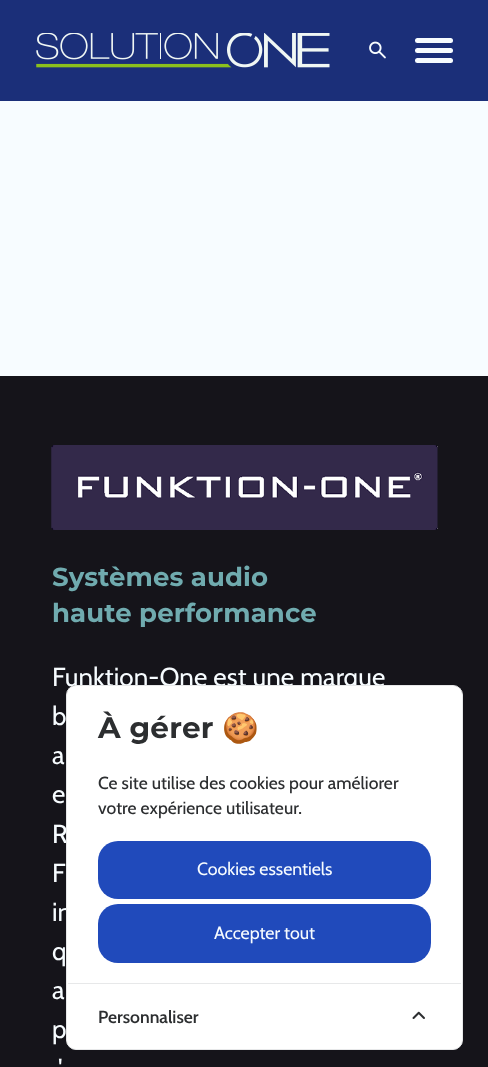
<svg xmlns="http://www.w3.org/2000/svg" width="488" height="1067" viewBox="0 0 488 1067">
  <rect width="100%" height="100%" fill="#15141a"/>
  <rect x="0" y="0" width="488" height="101" fill="#1b2f79"/>
  <image x="36" y="33" width="294" height="35" href="img1.png"/>
  <image x="369" y="41" width="17" height="18" href="img2.png"/>
  <rect x="415" y="48" width="38" height="5" rx="2.5" fill="#f7fcff"/>
  <rect x="415" y="38" width="38" height="5" rx="2.5" fill="#f7fcff"/>
  <rect x="415" y="58" width="38" height="5" rx="2.5" fill="#f7fcff"/>
  <rect x="0" y="101" width="488" height="275" fill="#f7fcff"/>
  <image x="51" y="445" width="387" height="85" href="img3.png"/>
  <text x="52" y="586" font-family="Montserrat" font-size="26" font-weight="bold" letter-spacing="0.1" fill="#70abaf">Systèmes audio</text>
  <text x="52" y="622" font-family="Montserrat" font-size="26" font-weight="bold" letter-spacing="0.1" fill="#70abaf">haute performance</text>
  <text x="52" y="686" font-family="Cabin" font-size="26" letter-spacing="0.1" fill="#f7fcff">Funktion-One est une marque</text>
  <text x="52" y="725" font-family="Cabin" font-size="26" letter-spacing="0.1" fill="#f7fcff">b</text>
  <text x="52" y="764" font-family="Cabin" font-size="26" letter-spacing="0.1" fill="#f7fcff">a</text>
  <text x="52" y="803" font-family="Cabin" font-size="26" letter-spacing="0.1" fill="#f7fcff">e</text>
  <text x="52" y="843" font-family="Cabin" font-size="26" letter-spacing="0.1" fill="#f7fcff">R</text>
  <text x="52" y="882" font-family="Cabin" font-size="26" letter-spacing="0.1" fill="#f7fcff">F</text>
  <text x="52" y="921" font-family="Cabin" font-size="26" letter-spacing="0.1" fill="#f7fcff">in</text>
  <text x="52" y="960" font-family="Cabin" font-size="26" letter-spacing="0.1" fill="#f7fcff">q</text>
  <text x="52" y="999" font-family="Cabin" font-size="26" letter-spacing="0.1" fill="#f7fcff">a</text>
  <text x="52" y="1038" font-family="Cabin" font-size="26" letter-spacing="0.1" fill="#f7fcff">p</text>
  <text x="58" y="1077" font-family="Cabin" font-size="26" letter-spacing="0.1" fill="#f7fcff">'</text>
  <rect x="66.5" y="685.5" width="396" height="364" rx="9.5" fill="#ffffff" stroke="#e7e8e9"/>
  <text x="98" y="738" font-family="Montserrat" font-size="29.5" font-weight="bold" letter-spacing="0.25" fill="#2c2e30">À gérer</text>
  <text x="222" y="738" font-family="Noto Color Emoji" font-size="29.5" font-weight="bold" letter-spacing="0.25" fill="#2c2e30">🍪</text>
  <text x="98" y="789" font-family="'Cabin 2'" font-size="17.5" letter-spacing="0.05" fill="#2c2e30">Ce site utilise des cookies pour améliorer</text>
  <text x="98" y="814" font-family="'Cabin 2'" font-size="17.5" letter-spacing="0.05" fill="#2c2e30">votre expérience utilisateur.</text>
  <rect x="98" y="841" width="333" height="58" rx="20" fill="#204abb"/>
  <text x="197" y="875" font-family="Cabin" font-size="17.75" fill="#f7fcff">Cookies essentiels</text>
  <rect x="98" y="904" width="333" height="59" rx="20" fill="#204abb"/>
  <text x="214" y="939" font-family="Cabin" font-size="17.75" fill="#f7fcff">Accepter tout</text>
  <rect x="68" y="983" width="393" height="1" fill="#e7e8e9"/>
  <text x="98" y="1023" font-family="Cabin" font-size="17.5" font-weight="600" fill="#2c2e30">Personnaliser</text>
  <image x="412" y="1011" width="13" height="8" href="img4.png"/>
</svg>
